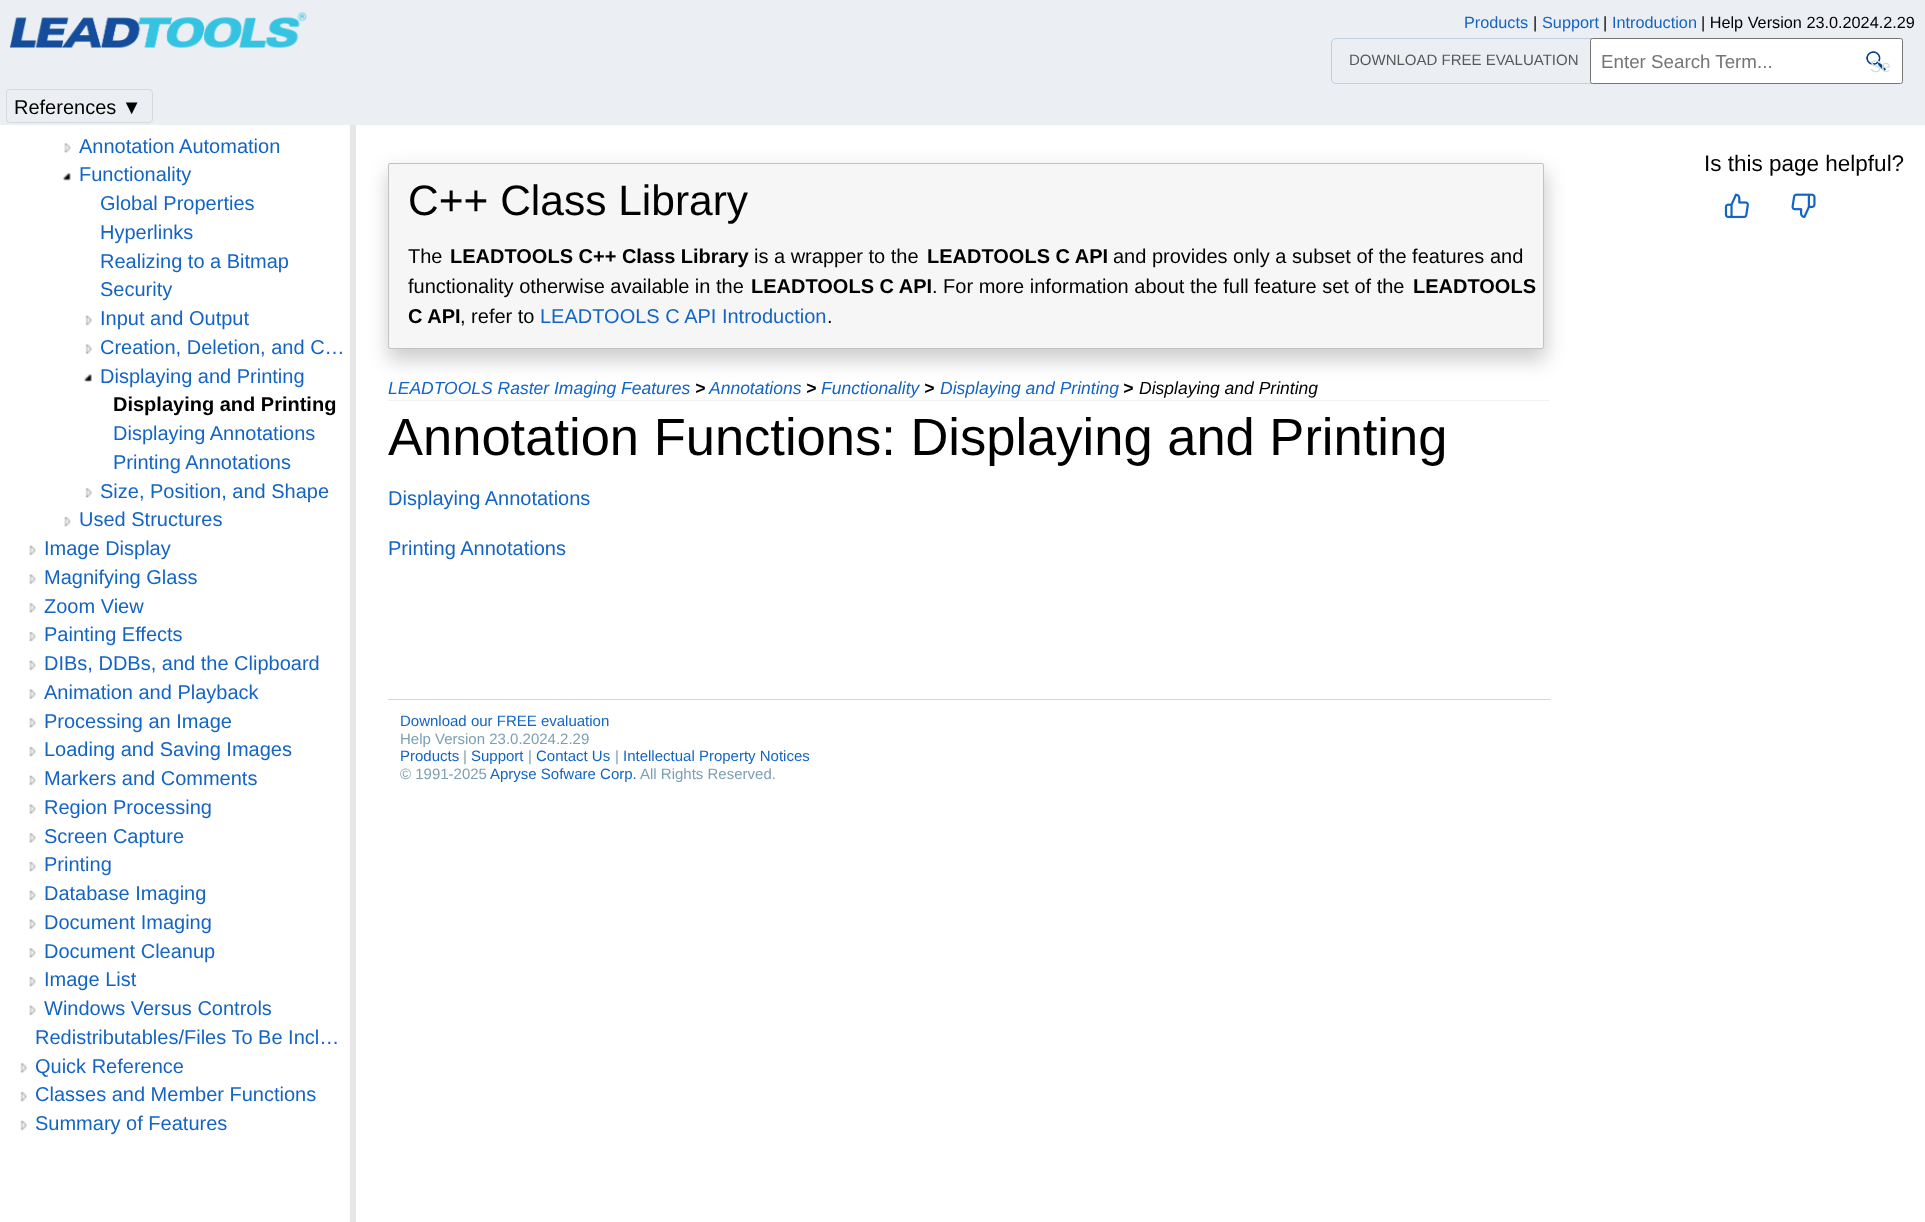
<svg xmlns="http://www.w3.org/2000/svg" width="1925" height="1222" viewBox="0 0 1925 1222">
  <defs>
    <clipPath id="clip1"><path d="M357 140H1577V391H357ZM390 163H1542C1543 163 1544 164 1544 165V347C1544 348 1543 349 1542 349H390C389 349 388 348 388 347V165C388 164 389 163 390 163Z" clip-rule="evenodd"/></clipPath>
    <filter id="blur1" x="-50%" y="-200%" width="200%" height="500%"><feGaussianBlur stdDeviation="10"/></filter>
  </defs>
  <rect width="100%" height="100%" fill="#ffffff"/>
  <rect x="0" y="0" width="1925" height="125" fill="#ebeef3"/>
  <image x="10" y="12" width="297" height="36" href="img1.png"/>
  <text x="1464" y="28" font-family="Liberation Sans" font-size="16.25" fill="#1364c4">Products</text>
  <text x="1533" y="28" font-family="Liberation Sans" font-size="16.25" fill="#000000">|</text>
  <text x="1542" y="28" font-family="Liberation Sans" font-size="16.25" fill="#1364c4">Support</text>
  <text x="1603" y="28" font-family="Liberation Sans" font-size="16.25" fill="#000000">|</text>
  <text x="1612" y="28" font-family="Liberation Sans" font-size="16.25" fill="#1364c4">Introduction</text>
  <text x="1701" y="28" font-family="Liberation Sans" font-size="16.25" fill="#000000">| Help Version 23.0.2024.2.29</text>
  <rect x="1331.5" y="38.5" width="264" height="45" rx="4.5" fill="none" stroke="#c0cee1"/>
  <text x="1349" y="65" font-family="Liberation Sans" font-size="15" fill="#585858">DOWNLOAD FREE EVALUATION</text>
  <rect x="1590.5" y="38.5" width="312" height="45" rx="2" fill="#ffffff" stroke="#767676"/>
  <text x="1601" y="68" font-family="Liberation Sans" font-size="18.75" fill="#757575">Enter Search Term...</text>
  <image x="1866" y="51" width="20" height="20" href="img2.png"/>
  <text x="1870" y="72" font-family="Liberation Sans" font-size="17" fill="#d2ddea">Se</text>
  <rect x="6.5" y="89.5" width="146" height="33" rx="3.5" fill="none" stroke="#d6d8dc"/>
  <text x="14" y="114" font-family="Liberation Sans" font-size="20" fill="#000000">References ▼</text>
  <rect x="350" y="125" width="6" height="1097" fill="#e6e6e6"/>
  <image x="64" y="143" width="7" height="10" href="img3.png"/>
  <text x="79" y="153" font-family="Liberation Sans" font-size="20" fill="#1364c4">Annotation Automation</text>
  <image x="63" y="173" width="8" height="8" href="img4.png"/>
  <text x="79" y="181" font-family="Liberation Sans" font-size="20" fill="#1364c4">Functionality</text>
  <text x="100" y="210" font-family="Liberation Sans" font-size="20" fill="#1364c4">Global Properties</text>
  <text x="100" y="239" font-family="Liberation Sans" font-size="20" fill="#1364c4">Hyperlinks</text>
  <text x="100" y="268" font-family="Liberation Sans" font-size="20" fill="#1364c4">Realizing to a Bitmap</text>
  <text x="100" y="296" font-family="Liberation Sans" font-size="20" fill="#1364c4">Security</text>
  <image x="85" y="315" width="7" height="11" href="img5.png"/>
  <text x="100" y="325" font-family="Liberation Sans" font-size="20" fill="#1364c4">Input and Output</text>
  <image x="85" y="344" width="7" height="11" href="img6.png"/>
  <text x="100" y="354" font-family="Liberation Sans" font-size="20" fill="#1364c4">Creation, Deletion, and C…</text>
  <image x="84" y="374" width="8" height="8" href="img7.png"/>
  <text x="100" y="383" font-family="Liberation Sans" font-size="20" fill="#1364c4">Displaying and Printing</text>
  <text x="113" y="411" font-family="Liberation Sans" font-size="20" font-weight="bold" fill="#000000">Displaying and Printing</text>
  <text x="113" y="440" font-family="Liberation Sans" font-size="20" fill="#1364c4">Displaying Annotations</text>
  <text x="113" y="469" font-family="Liberation Sans" font-size="20" fill="#1364c4">Printing Annotations</text>
  <image x="85" y="488" width="7" height="10" href="img8.png"/>
  <text x="100" y="498" font-family="Liberation Sans" font-size="20" fill="#1364c4">Size, Position, and Shape</text>
  <image x="64" y="516" width="7" height="11" href="img9.png"/>
  <text x="79" y="526" font-family="Liberation Sans" font-size="20" fill="#1364c4">Used Structures</text>
  <image x="29" y="545" width="7" height="11" href="img10.png"/>
  <text x="44" y="555" font-family="Liberation Sans" font-size="20" fill="#1364c4">Image Display</text>
  <image x="29" y="574" width="7" height="11" href="img11.png"/>
  <text x="44" y="584" font-family="Liberation Sans" font-size="20" fill="#1364c4">Magnifying Glass</text>
  <image x="29" y="603" width="7" height="10" href="img3.png"/>
  <text x="44" y="613" font-family="Liberation Sans" font-size="20" fill="#1364c4">Zoom View</text>
  <image x="29" y="631" width="7" height="11" href="img9.png"/>
  <text x="44" y="641" font-family="Liberation Sans" font-size="20" fill="#1364c4">Painting Effects</text>
  <image x="29" y="660" width="7" height="11" href="img10.png"/>
  <text x="44" y="670" font-family="Liberation Sans" font-size="20" fill="#1364c4">DIBs, DDBs, and the Clipboard</text>
  <image x="29" y="689" width="7" height="11" href="img11.png"/>
  <text x="44" y="699" font-family="Liberation Sans" font-size="20" fill="#1364c4">Animation and Playback</text>
  <image x="29" y="718" width="7" height="10" href="img3.png"/>
  <text x="44" y="728" font-family="Liberation Sans" font-size="20" fill="#1364c4">Processing an Image</text>
  <image x="29" y="746" width="7" height="11" href="img9.png"/>
  <text x="44" y="756" font-family="Liberation Sans" font-size="20" fill="#1364c4">Loading and Saving Images</text>
  <image x="29" y="775" width="7" height="11" href="img10.png"/>
  <text x="44" y="785" font-family="Liberation Sans" font-size="20" fill="#1364c4">Markers and Comments</text>
  <image x="29" y="804" width="7" height="11" href="img11.png"/>
  <text x="44" y="814" font-family="Liberation Sans" font-size="20" fill="#1364c4">Region Processing</text>
  <image x="29" y="833" width="7" height="10" href="img3.png"/>
  <text x="44" y="843" font-family="Liberation Sans" font-size="20" fill="#1364c4">Screen Capture</text>
  <image x="29" y="861" width="7" height="11" href="img9.png"/>
  <text x="44" y="871" font-family="Liberation Sans" font-size="20" fill="#1364c4">Printing</text>
  <image x="29" y="890" width="7" height="11" href="img10.png"/>
  <text x="44" y="900" font-family="Liberation Sans" font-size="20" fill="#1364c4">Database Imaging</text>
  <image x="29" y="919" width="7" height="11" href="img11.png"/>
  <text x="44" y="929" font-family="Liberation Sans" font-size="20" fill="#1364c4">Document Imaging</text>
  <image x="29" y="948" width="7" height="10" href="img3.png"/>
  <text x="44" y="958" font-family="Liberation Sans" font-size="20" fill="#1364c4">Document Cleanup</text>
  <image x="29" y="976" width="7" height="11" href="img9.png"/>
  <text x="44" y="986" font-family="Liberation Sans" font-size="20" fill="#1364c4">Image List</text>
  <image x="29" y="1005" width="7" height="11" href="img10.png"/>
  <text x="44" y="1015" font-family="Liberation Sans" font-size="20" fill="#1364c4">Windows Versus Controls</text>
  <text x="35" y="1044" font-family="Liberation Sans" font-size="20" fill="#1364c4">Redistributables/Files To Be Incl…</text>
  <image x="20" y="1063" width="7" height="10" href="img8.png"/>
  <text x="35" y="1073" font-family="Liberation Sans" font-size="20" fill="#1364c4">Quick Reference</text>
  <image x="20" y="1091" width="7" height="11" href="img12.png"/>
  <text x="35" y="1101" font-family="Liberation Sans" font-size="20" fill="#1364c4">Classes and Member Functions</text>
  <image x="20" y="1120" width="7" height="11" href="img5.png"/>
  <text x="35" y="1130" font-family="Liberation Sans" font-size="20" fill="#1364c4">Summary of Features</text>
  <text x="1704" y="171" font-family="Liberation Sans" font-size="22.5" fill="#000000">Is this page helpful?</text>
  <image x="1724" y="193" width="25" height="26" href="img13.png"/>
  <image x="1791" y="193" width="25" height="25" href="img14.png"/>
  <g clip-path="url(#clip1)">
    <rect x="388" y="171" width="1158" height="189" rx="3" fill="#000000" fill-opacity="0.2" filter="url(#blur1)"/>
  </g>
  <rect x="388" y="163" width="1156" height="186" rx="2" fill="#d2d2d2" fill-opacity="0.2"/>
  <rect x="388.5" y="163.5" width="1155" height="185" rx="1.5" fill="none" stroke="#767676" stroke-opacity="0.4"/>
  <text x="408" y="215" font-family="Liberation Sans" font-size="42.5" fill="#000000">C++ Class Library</text>
  <text x="408" y="263" font-family="Liberation Sans" font-size="20" fill="#000000">The</text>
  <text x="450" y="263" font-family="Liberation Sans" font-size="20" font-weight="bold" fill="#000000">LEADTOOLS C++ Class Library</text>
  <text x="754" y="263" font-family="Liberation Sans" font-size="20" fill="#000000">is a wrapper to the</text>
  <text x="927" y="263" font-family="Liberation Sans" font-size="20" font-weight="bold" fill="#000000">LEADTOOLS C API</text>
  <text x="1113" y="263" font-family="Liberation Sans" font-size="20" fill="#000000">and provides only a subset of the features and</text>
  <text x="408" y="293" font-family="Liberation Sans" font-size="20" fill="#000000">functionality otherwise available in the</text>
  <text x="751" y="293" font-family="Liberation Sans" font-size="20" font-weight="bold" fill="#000000">LEADTOOLS C API</text>
  <text x="932" y="293" font-family="Liberation Sans" font-size="20" fill="#000000">. For more information about the full feature set of the</text>
  <text x="1413" y="293" font-family="Liberation Sans" font-size="20" font-weight="bold" fill="#000000">LEADTOOLS</text>
  <text x="408" y="323" font-family="Liberation Sans" font-size="20" font-weight="bold" fill="#000000">C API</text>
  <text x="460" y="323" font-family="Liberation Sans" font-size="20" fill="#000000">, refer to</text>
  <text x="540" y="323" font-family="Liberation Sans" font-size="20" fill="#1364c4">LEADTOOLS C API Introduction</text>
  <text x="827" y="323" font-family="Liberation Sans" font-size="20" fill="#000000">.</text>
  <rect x="388" y="400" width="1162" height="1" fill="#f1f1f1"/>
  <text x="388" y="394" font-family="Liberation Sans" font-size="17.5" font-style="italic" fill="#1364c4">LEADTOOLS Raster Imaging Features</text>
  <text x="695" y="394" font-family="Liberation Sans" font-size="17.5" font-weight="bold" font-style="italic" fill="#000000">&gt;</text>
  <text x="709" y="394" font-family="Liberation Sans" font-size="17.5" font-style="italic" fill="#1364c4">Annotations</text>
  <text x="806" y="394" font-family="Liberation Sans" font-size="17.5" font-weight="bold" font-style="italic" fill="#000000">&gt;</text>
  <text x="821" y="394" font-family="Liberation Sans" font-size="17.5" font-style="italic" fill="#1364c4">Functionality</text>
  <text x="924" y="394" font-family="Liberation Sans" font-size="17.5" font-weight="bold" font-style="italic" fill="#000000">&gt;</text>
  <text x="940" y="394" font-family="Liberation Sans" font-size="17.5" font-style="italic" fill="#1364c4">Displaying and Printing</text>
  <text x="1123" y="394" font-family="Liberation Sans" font-size="17.5" font-weight="bold" font-style="italic" fill="#000000">&gt;</text>
  <text x="1139" y="394" font-family="Liberation Sans" font-size="17.5" font-style="italic" fill="#000000">Displaying and Printing</text>
  <text x="388" y="455" font-family="Liberation Sans" font-size="52.5" fill="#000000">Annotation Functions: Displaying and Printing</text>
  <text x="388" y="505" font-family="Liberation Sans" font-size="20" fill="#1364c4">Displaying Annotations</text>
  <text x="388" y="555" font-family="Liberation Sans" font-size="20" fill="#1364c4">Printing Annotations</text>
  <rect x="388" y="699" width="1163" height="1" fill="#d5d8dc"/>
  <text x="400" y="726" font-family="Liberation Sans" font-size="15" fill="#1364c4">Download our FREE evaluation</text>
  <text x="400" y="744" font-family="Liberation Sans" font-size="15" fill="#7ba0b2">Help Version 23.0.2024.2.29</text>
  <text x="400" y="761" font-family="Liberation Sans" font-size="15" fill="#1364c4">Products</text>
  <text x="463" y="761" font-family="Liberation Sans" font-size="15" fill="#7ba0b2">|</text>
  <text x="471" y="761" font-family="Liberation Sans" font-size="15" fill="#1364c4">Support</text>
  <text x="528" y="761" font-family="Liberation Sans" font-size="15" fill="#7ba0b2">|</text>
  <text x="536" y="761" font-family="Liberation Sans" font-size="15" fill="#1364c4">Contact Us</text>
  <text x="615" y="761" font-family="Liberation Sans" font-size="15" fill="#7ba0b2">|</text>
  <text x="623" y="761" font-family="Liberation Sans" font-size="15" fill="#1364c4">Intellectual Property Notices</text>
  <text x="400" y="779" font-family="Liberation Sans" font-size="15" fill="#7ba0b2">© 1991-2025</text>
  <text x="490" y="779" font-family="Liberation Sans" font-size="15" fill="#1364c4">Apryse Sofware Corp.</text>
  <text x="640" y="779" font-family="Liberation Sans" font-size="15" fill="#7ba0b2">All Rights Reserved.</text>
</svg>
